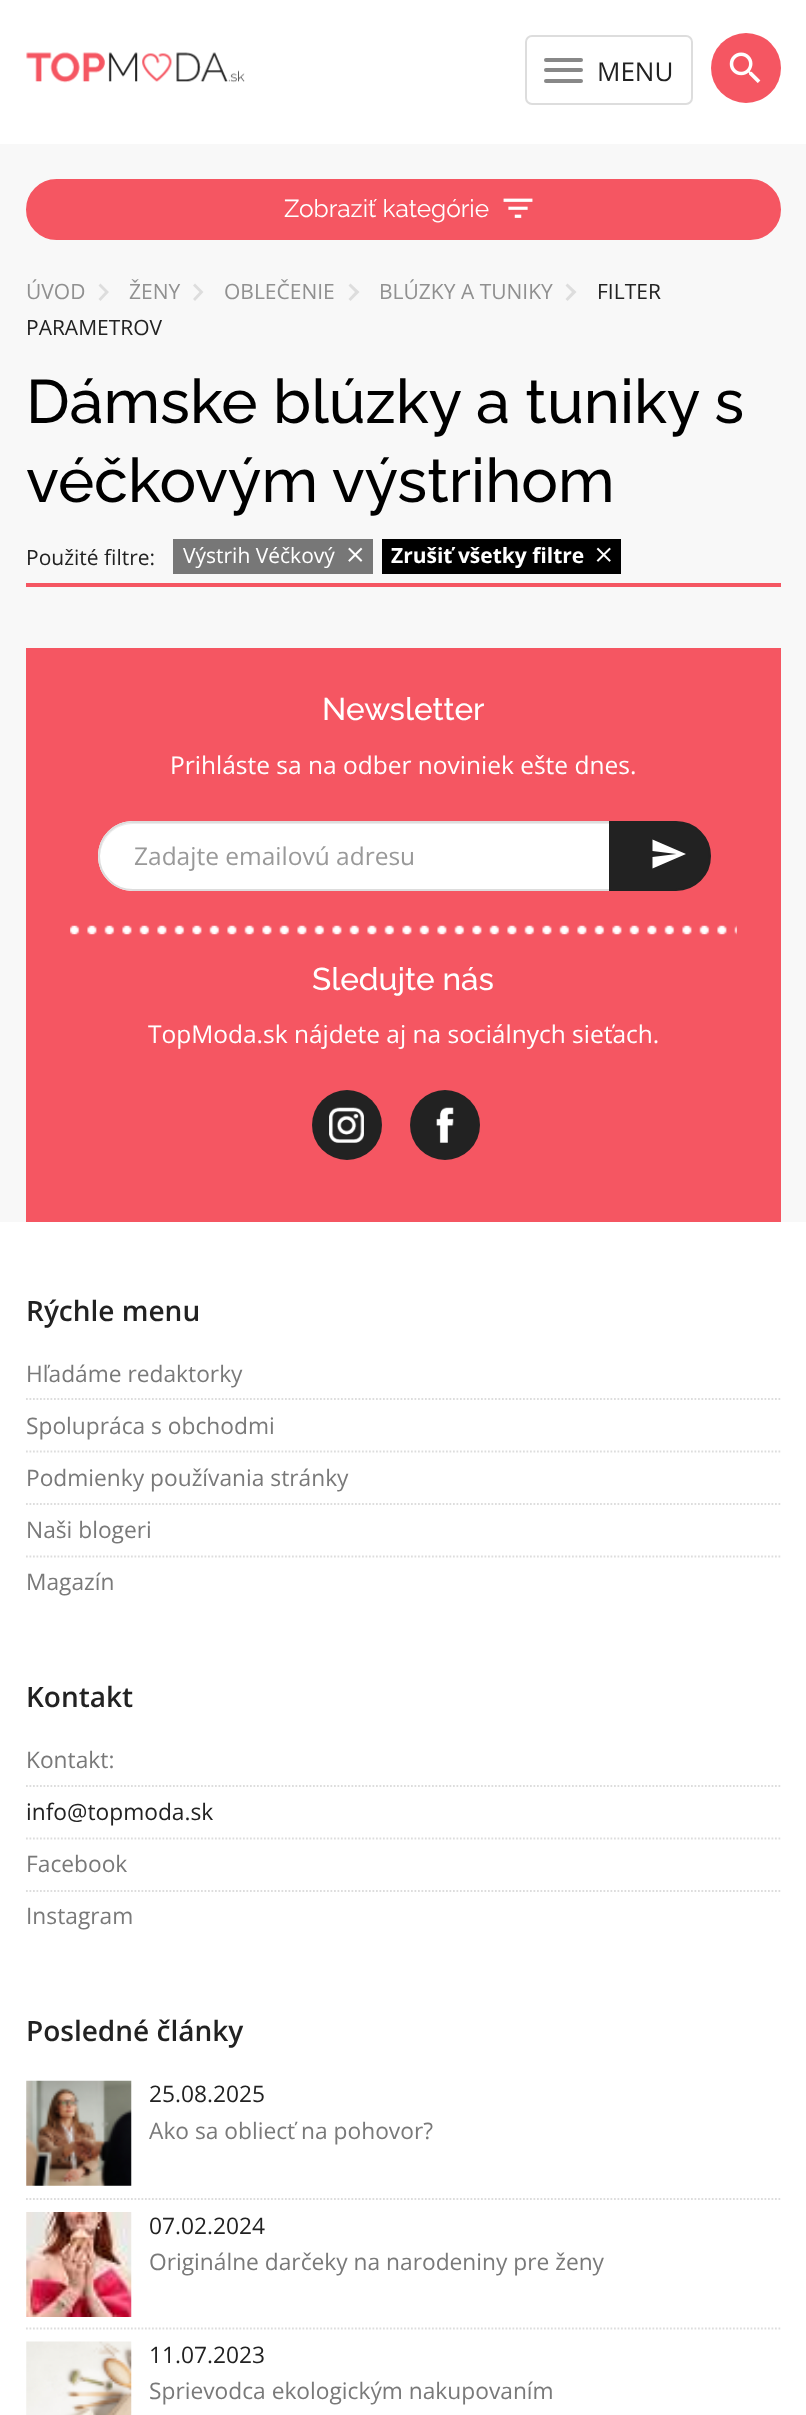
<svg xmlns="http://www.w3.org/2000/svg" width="806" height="2415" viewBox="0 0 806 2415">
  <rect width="100%" height="100%" fill="#f8f8f8"/>
  <rect x="0" y="0" width="806" height="144" fill="#ffffff"/>
  <image x="26" y="52" width="219" height="31" href="img1.png"/>
  <rect x="526" y="36" width="166" height="68" rx="6" fill="none" stroke="#dddddd" stroke-width="2"/>
  <rect x="544" y="58" width="39" height="4" rx="2" fill="#888888"/>
  <rect x="544" y="68" width="39" height="4" rx="2" fill="#888888"/>
  <rect x="544" y="79" width="39" height="4" rx="2" fill="#888888"/>
  <text x="597" y="81" font-family="Open Sans" font-size="26" fill="#222222">MENU</text>
  <circle cx="746" cy="68" r="35" fill="#f55662"/>
  <image x="729" y="52" width="32" height="31" href="img2.png"/>
  <rect x="27" y="180" width="753" height="59" rx="29.5" fill="#f55662" stroke="#f55662" stroke-width="2"/>
  <text x="284" y="217" font-family="Raleway" font-size="24.5" fill="#ffffff">Zobraziť kategórie</text>
  <image x="503" y="198" width="30" height="20" href="img3.png"/>
  <text x="26" y="299" font-family="Open Sans" font-size="21" fill="#909090">ÚVOD</text>
  <path d="M348.5 299L355 292L348.5 285.5L350.5 283.5L359.5 292L350.5 301Z" fill="#dddddd"/>
  <text x="379" y="299" font-family="Open Sans" font-size="21" fill="#909090">BLÚZKY A TUNIKY</text>
  <path d="M565.5 299L572 292L565.5 285.5L567.5 283.5L576.5 292L567.5 301Z" fill="#dddddd"/>
  <text x="597" y="299" font-family="Open Sans" font-size="21" fill="#222222">FILTER</text>
  <text x="26" y="335" font-family="Open Sans" font-size="21" fill="#222222">PARAMETROV</text>
  <path d="M193 299L199.5 292L193 285.5L195 283.5L203.5 292L195 301Z" fill="#dddddd"/>
  <text x="224" y="299" font-family="Open Sans" font-size="21" fill="#909090">OBLEČENIE</text>
  <path d="M98.5 299L105 292L98.5 285.5L100.5 283.5L109 292L100.5 301Z" fill="#dddddd"/>
  <text x="129" y="299" font-family="Open Sans" font-size="21" fill="#909090">ŽENY</text>
  <text x="26" y="423" font-family="Raleway" font-size="61.25" font-weight="500" fill="#000000">Dámske blúzky a tuniky s</text>
  <text x="26" y="502" font-family="Raleway" font-size="61.25" font-weight="500" fill="#000000">véčkovým výstrihom</text>
  <text x="26" y="565" font-family="Open Sans" font-size="21" fill="#222222">Použité filtre:</text>
  <rect x="173" y="539" width="200" height="35" fill="#777777"/>
  <text x="183" y="563" font-family="Open Sans" font-size="21" fill="#ffffff">Výstrih Véčkový</text>
  <image x="348" y="547" width="15" height="15" href="img4.png"/>
  <rect x="382" y="539" width="239" height="35" fill="#000000"/>
  <text x="391" y="563" font-family="Open Sans" font-size="21" font-weight="bold" fill="#ffffff">Zrušiť všetky filtre</text>
  <image x="596" y="547" width="15" height="15" href="img5.png"/>
  <rect x="26" y="583" width="755" height="4" fill="#f55662"/>
  <rect x="26" y="648" width="755" height="574" fill="#f55662"/>
  <text x="322" y="720" font-family="Raleway" font-size="31.5" font-weight="500" fill="#ffffff">Newsletter</text>
  <text x="170" y="774" font-family="Open Sans" font-size="24.5" fill="#ffffff">Prihláste sa na odber noviniek ešte dnes.</text>
  <path d="M133 821H611V891H133C113.5 891 98 875.5 98 856C98 836.5 113.5 821 133 821Z" fill="#ffffff"/>
  <path d="M133 824H609V823H133C115 823 99 839 100 857C101 838 115 824 133 824Z" fill="#ececec"/>
  <path d="M133 822H610V890H133C114 890 99 875 99 856C99 837 114 822 133 822Z" fill="none" stroke="#dddddd" stroke-width="2"/>
  <text x="134" y="865" font-family="Open Sans" font-size="24.5" fill="#999999">Zadajte emailovú adresu</text>
  <path d="M610 822H676C695 822 710 837 710 856C710 875 695 890 676 890H610Z" fill="#222222" stroke="#222222" stroke-width="2"/>
  <path d="M652.5 868.5V857L676.5 854L652.5 851V839.5L686 854Z" fill="#ffffff"/>
  <image x="70" y="925" width="667" height="10" href="img6.png"/>
  <text x="312" y="990" font-family="Raleway" font-size="31.5" font-weight="500" fill="#ffffff">Sledujte nás</text>
  <text x="148" y="1043" font-family="Open Sans" font-size="24.5" fill="#ffffff">TopModa.sk nájdete aj na sociálnych sieťach.</text>
  <circle cx="347" cy="1125" r="35" fill="#222222"/>
  <image x="329" y="1107" width="35" height="36" href="img7.png"/>
  <circle cx="445" cy="1125" r="35" fill="#222222"/>
  <image x="436" y="1107" width="18" height="36" href="img8.png"/>
  <rect x="0" y="1222" width="806" height="1193" fill="#ffffff"/>
  <text x="26" y="1321" font-family="Open Sans" font-size="28" font-weight="600" fill="#222222">Rýchle menu</text>
  <text x="26" y="1382" font-family="Open Sans" font-size="22.75" fill="#797979">Hľadáme redaktorky</text>
  <path d="M26 1399H780.5" fill="none" stroke="#dddddd" stroke-width="1.8" stroke-dasharray="1.75 1.75"/>
  <text x="26" y="1434" font-family="Open Sans" font-size="22.75" fill="#797979">Spolupráca s obchodmi</text>
  <path d="M26 1451.5H780.5" fill="none" stroke="#dddddd" stroke-width="1.8" stroke-dasharray="1.75 1.75"/>
  <text x="26" y="1486" font-family="Open Sans" font-size="22.75" fill="#797979">Podmienky používania stránky</text>
  <path d="M26 1504H780.5" fill="none" stroke="#dddddd" stroke-width="1.8" stroke-dasharray="1.75 1.75"/>
  <text x="26" y="1538" font-family="Open Sans" font-size="22.75" fill="#797979">Naši blogeri</text>
  <path d="M26 1556.5H780.5" fill="none" stroke="#dddddd" stroke-width="1.8" stroke-dasharray="1.75 1.75"/>
  <text x="26" y="1590" font-family="Open Sans" font-size="22.75" fill="#797979">Magazín</text>
  <text x="26" y="1707" font-family="Open Sans" font-size="28" font-weight="600" fill="#222222">Kontakt</text>
  <text x="26" y="1768" font-family="Open Sans" font-size="22.75" fill="#797979">Kontakt:</text>
  <path d="M26 1786H780.5" fill="none" stroke="#dddddd" stroke-width="1.8" stroke-dasharray="1.75 1.75"/>
  <text x="26" y="1820" font-family="Open Sans" font-size="22.75" fill="#222222">info@topmoda.sk</text>
  <path d="M26 1838.5H780.5" fill="none" stroke="#dddddd" stroke-width="1.8" stroke-dasharray="1.75 1.75"/>
  <text x="26" y="1872" font-family="Open Sans" font-size="22.75" fill="#797979">Facebook</text>
  <path d="M26 1891H780.5" fill="none" stroke="#dddddd" stroke-width="1.8" stroke-dasharray="1.75 1.75"/>
  <text x="26" y="1924" font-family="Open Sans" font-size="22.75" fill="#797979">Instagram</text>
  <text x="26" y="2041" font-family="Open Sans" font-size="28" font-weight="600" fill="#222222">Posledné články</text>
  <image x="26" y="2080" width="106" height="106" href="img9.png"/>
  <text x="149" y="2102" font-family="Open Sans" font-size="22.75" fill="#222222">25.08.2025</text>
  <text x="149" y="2139" font-family="Open Sans" font-size="22.75" fill="#797979">Ako sa obliecť na pohovor?</text>
  <path d="M26 2199H780.5" fill="none" stroke="#dddddd" stroke-width="1.8" stroke-dasharray="1.75 1.75"/>
  <image x="26" y="2212" width="106" height="105" href="img10.png"/>
  <text x="149" y="2234" font-family="Open Sans" font-size="22.75" fill="#222222">07.02.2024</text>
  <text x="149" y="2270" font-family="Open Sans" font-size="22.75" fill="#797979">Originálne darčeky na narodeniny pre ženy</text>
  <path d="M26 2328.5H780.5" fill="none" stroke="#dddddd" stroke-width="1.8" stroke-dasharray="1.75 1.75"/>
  <image x="26" y="2341" width="106" height="74" href="img11.png"/>
  <text x="149" y="2363" font-family="Open Sans" font-size="22.75" fill="#222222">11.07.2023</text>
  <text x="149" y="2399" font-family="Open Sans" font-size="22.75" fill="#797979">Sprievodca ekologickým nakupovaním</text>
</svg>
